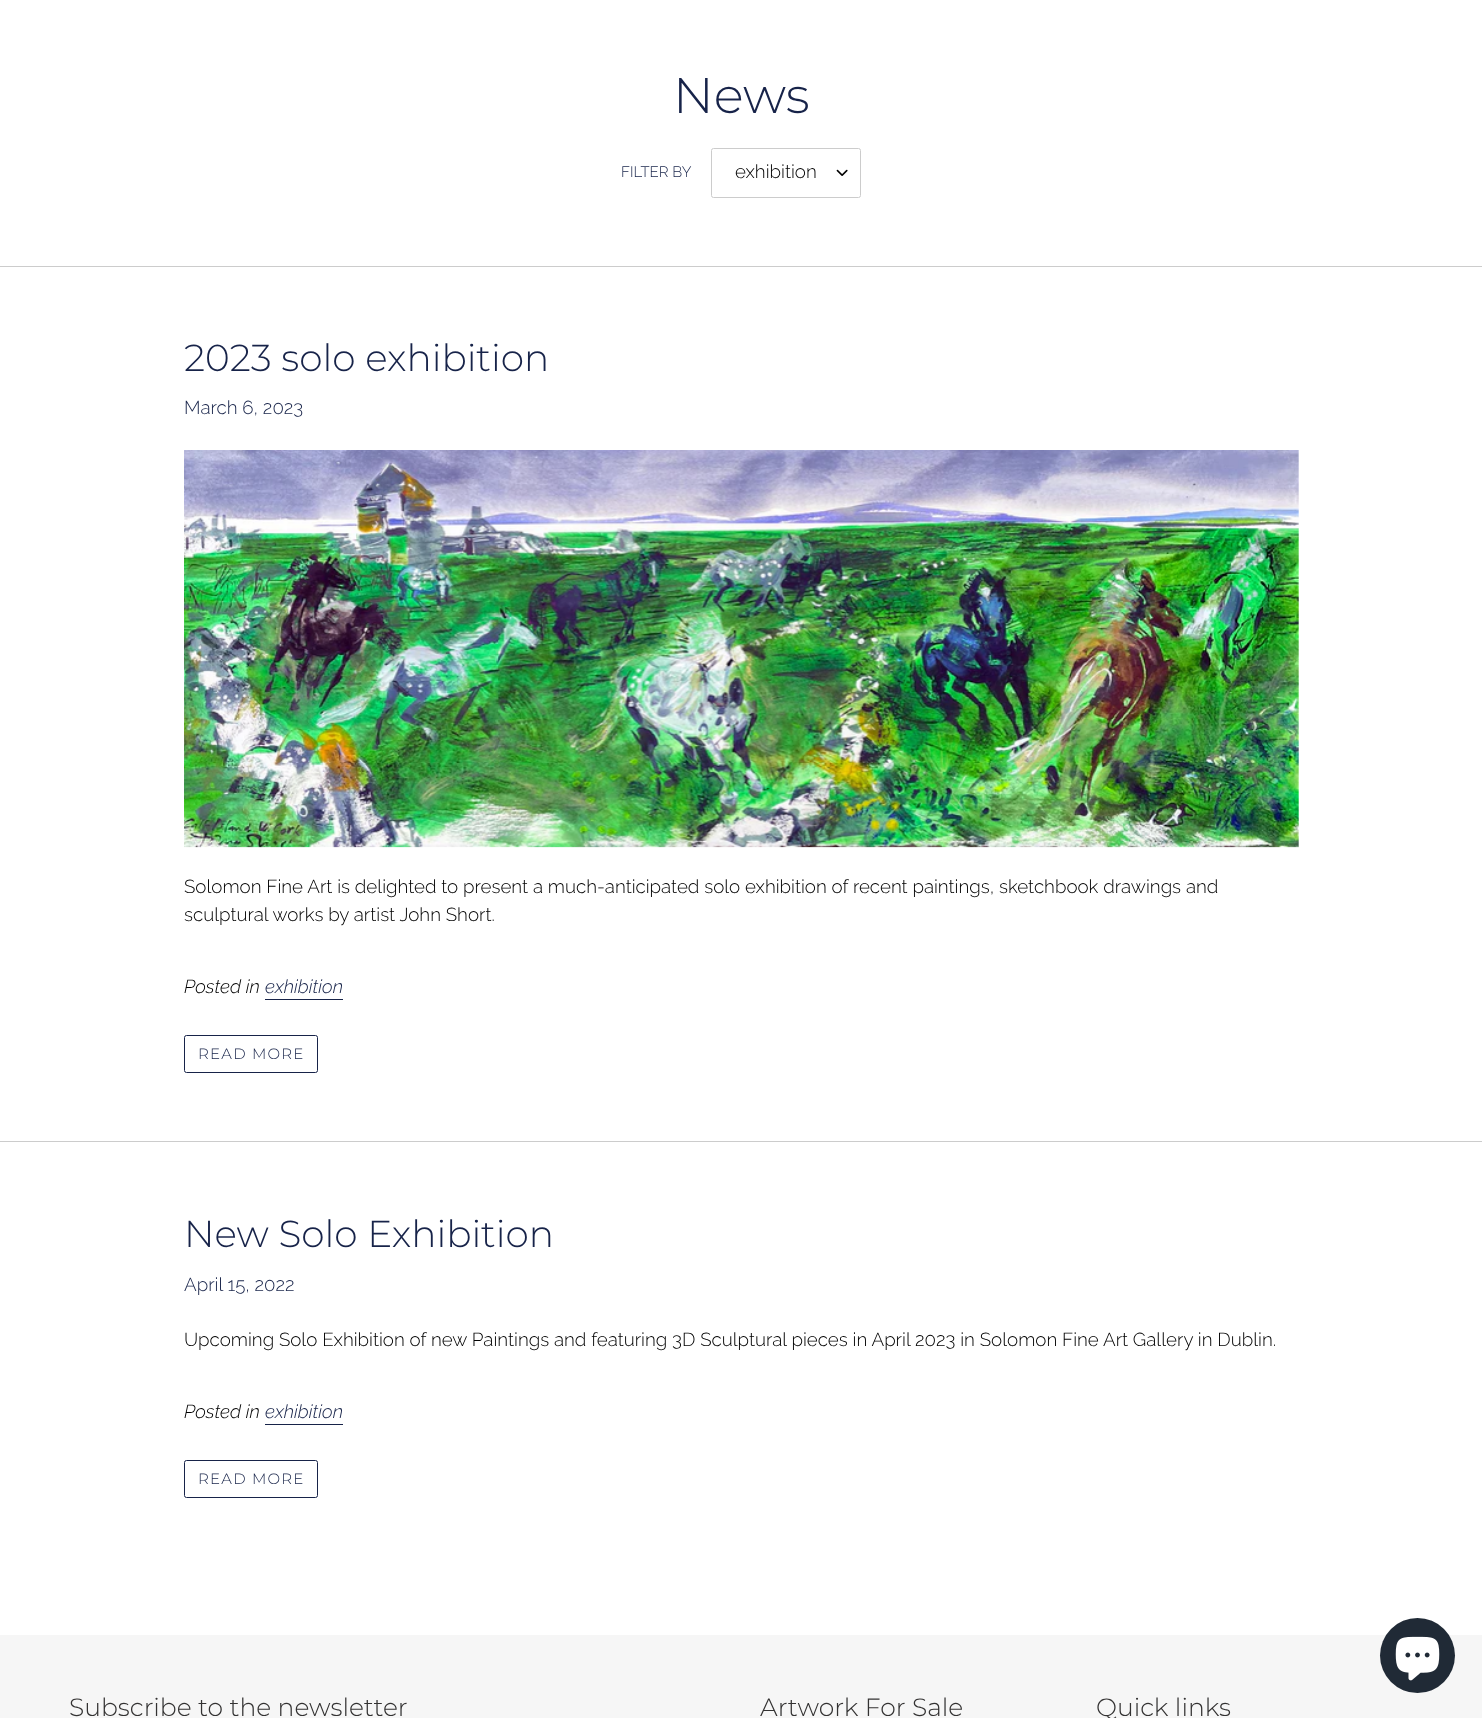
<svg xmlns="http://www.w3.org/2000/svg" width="1482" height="1718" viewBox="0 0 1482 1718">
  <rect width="100%" height="100%" fill="#ffffff"/>
  <text x="673" y="113" font-family="Montserrat" font-size="50" font-weight="300" fill="#172349">News</text>
  <text x="621" y="177" font-family="Raleway" font-size="15" font-weight="300" fill="#172349">FILTER BY</text>
  <image x="836" y="169" width="12" height="7" href="img1.png"/>
  <rect x="711.5" y="148.5" width="149" height="49" rx="2" fill="none" stroke="#cccccc"/>
  <text x="735" y="178" font-family="Raleway" font-size="18.75" font-weight="300" fill="#000000">exhibition</text>
  <rect x="0" y="266" width="1482" height="1" fill="#cccccc"/>
  <text x="184" y="371" font-family="Montserrat" font-size="37.5" font-weight="300" fill="#172349">2023 solo exhibition</text>
  <text x="184" y="414" font-family="Raleway" font-size="18.75" font-weight="300" fill="#172349">March 6, 2023</text>
  <image x="184" y="450" width="1115" height="398" href="img2.png"/>
  <text x="184" y="893" font-family="Raleway" font-size="18.75" font-weight="300" fill="#000000">Solomon Fine Art is delighted to present a much-anticipated solo exhibition of recent paintings, sketchbook drawings and</text>
  <text x="184" y="921" font-family="Raleway" font-size="18.75" font-weight="300" fill="#000000">sculptural works by artist John Short.</text>
  <text x="184" y="993" font-family="Raleway" font-size="18.75" font-weight="300" font-style="italic" fill="#000000">Posted in</text>
  <text x="265" y="993" font-family="Raleway" font-size="18.75" font-weight="300" font-style="italic" fill="#172349">exhibition</text>
  <rect x="265" y="999" width="78" height="1" fill="#172349"/>
  <rect x="184.5" y="1035.5" width="133" height="37" rx="2" fill="none" stroke="#172349"/>
  <text x="198" y="1059" font-family="Montserrat" font-size="15" font-weight="300" letter-spacing="1.25" fill="#172349">READ MORE</text>
  <rect x="0" y="1141" width="1482" height="1" fill="#cccccc"/>
  <text x="184" y="1247" font-family="Montserrat" font-size="37.5" font-weight="300" fill="#172349">New Solo Exhibition</text>
  <text x="184" y="1291" font-family="Raleway" font-size="18.75" font-weight="300" fill="#172349">April 15, 2022</text>
  <text x="184" y="1346" font-family="Raleway" font-size="18.75" font-weight="300" fill="#000000">Upcoming Solo Exhibition of new Paintings and featuring 3D Sculptural pieces in April 2023 in Solomon Fine Art Gallery in Dublin.</text>
  <text x="184" y="1418" font-family="Raleway" font-size="18.75" font-weight="300" font-style="italic" fill="#000000">Posted in</text>
  <text x="265" y="1418" font-family="Raleway" font-size="18.75" font-weight="300" font-style="italic" fill="#172349">exhibition</text>
  <rect x="265" y="1424" width="78" height="1" fill="#172349"/>
  <rect x="184.5" y="1460.5" width="133" height="37" rx="2" fill="none" stroke="#172349"/>
  <text x="198" y="1484" font-family="Montserrat" font-size="15" font-weight="300" letter-spacing="1.25" fill="#172349">READ MORE</text>
  <rect x="0" y="1635" width="1482" height="83" fill="#f6f6f6"/>
  <text x="69" y="1716" font-family="Montserrat" font-size="25" font-weight="300" fill="#333232">Subscribe to the newsletter</text>
  <text x="760" y="1716" font-family="Montserrat" font-size="25" font-weight="300" fill="#333232">Artwork For Sale</text>
  <text x="1096" y="1716" font-family="Montserrat" font-size="25" font-weight="300" fill="#333232">Quick links</text>
  <circle cx="1417.5" cy="1655.5" r="37.5" fill="#202a36"/>
  <image x="1395" y="1636" width="45" height="45" href="img3.png"/>
</svg>
